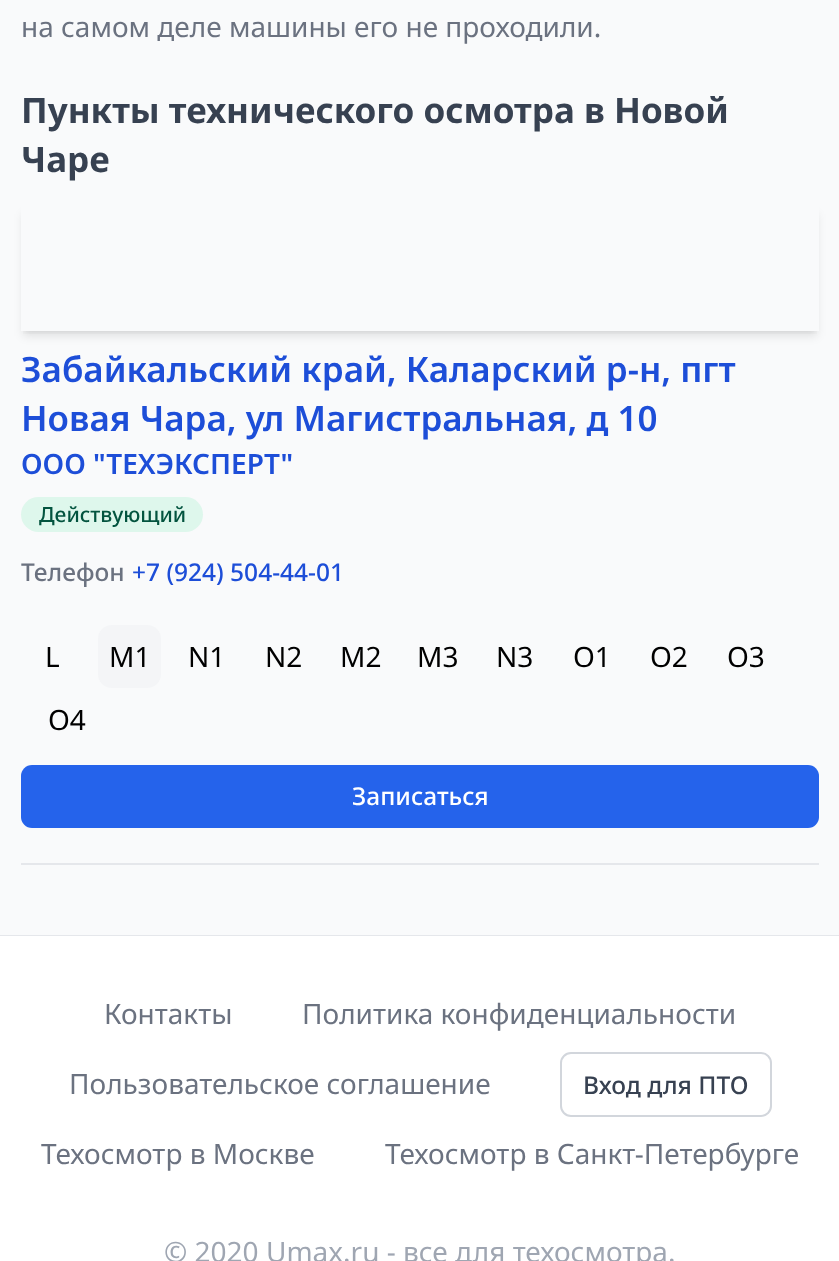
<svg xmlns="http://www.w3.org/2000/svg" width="839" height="1261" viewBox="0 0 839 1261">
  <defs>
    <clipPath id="clip1"><rect x="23" y="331" width="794" height="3"/></clipPath>
    <filter id="blur1" x="-50%" y="-200%" width="200%" height="500%"><feGaussianBlur stdDeviation="3.5"/></filter>
    <clipPath id="clip2"><path d="M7 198H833V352H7ZM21 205H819V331H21Z" clip-rule="evenodd"/></clipPath>
    <filter id="blur2" x="-50%" y="-200%" width="200%" height="500%"><feGaussianBlur stdDeviation="5"/></filter>
  </defs>
  <rect width="100%" height="100%" fill="#f9fafb"/>
  <rect x="0" y="935" width="839" height="1" fill="#e5e7eb"/>
  <text x="21" y="37" font-family="Noto Sans" font-size="28" fill="#6b7280">на самом деле машины его не проходили.</text>
  <text x="21" y="123" font-family="Noto Sans" font-size="35" font-weight="bold" fill="#374151">Пункты технического осмотра в Новой</text>
  <text x="21" y="172" font-family="Noto Sans" font-size="35" font-weight="bold" fill="#374151">Чаре</text>
  <rect x="21" y="863" width="798" height="2" fill="#e5e7eb"/>
  <g clip-path="url(#clip1)">
    <rect x="23" y="210" width="794" height="123" fill="#000000" fill-opacity="0.06" filter="url(#blur1)"/>
  </g>
  <g clip-path="url(#clip2)">
    <rect x="23" y="214" width="794" height="122" fill="#000000" fill-opacity="0.1" filter="url(#blur2)"/>
  </g>
  <text x="21" y="382" font-family="Noto Sans" font-size="35" font-weight="600" fill="#1d4ed8">Забайкальский край, Каларский р-н, пгт</text>
  <text x="21" y="431" font-family="Noto Sans" font-size="35" font-weight="600" fill="#1d4ed8">Новая Чара, ул Магистральная, д 10</text>
  <text x="21" y="474" font-family="Noto Sans" font-size="28" font-weight="600" fill="#1d4ed8">ООО "ТЕХЭКСПЕРТ"</text>
  <rect x="21" y="497" width="182" height="35" rx="17.5" fill="#def7ec"/>
  <text x="39" y="522" font-family="Noto Sans" font-size="21" font-weight="500" fill="#03543f">Действующий</text>
  <text x="21" y="581" font-family="Noto Sans" font-size="24.5" font-weight="500" fill="#6b7280">Телефон</text>
  <text x="132" y="581" font-family="Noto Sans" font-size="24.5" font-weight="500" fill="#1d4ed8">+7 (924) 504-44-01</text>
  <text x="45" y="667" font-family="Noto Sans" font-size="28" fill="#000000">L</text>
  <rect x="98" y="625" width="63" height="63" rx="14" fill="#f4f5f7"/>
  <text x="109" y="667" font-family="Noto Sans" font-size="28" fill="#000000">M1</text>
  <text x="188" y="667" font-family="Noto Sans" font-size="28" fill="#000000">N1</text>
  <text x="265" y="667" font-family="Noto Sans" font-size="28" fill="#000000">N2</text>
  <text x="340" y="667" font-family="Noto Sans" font-size="28" fill="#000000">M2</text>
  <text x="417" y="667" font-family="Noto Sans" font-size="28" fill="#000000">M3</text>
  <text x="496" y="667" font-family="Noto Sans" font-size="28" fill="#000000">N3</text>
  <text x="573" y="667" font-family="Noto Sans" font-size="28" fill="#000000">O1</text>
  <text x="650" y="667" font-family="Noto Sans" font-size="28" fill="#000000">O2</text>
  <text x="727" y="667" font-family="Noto Sans" font-size="28" fill="#000000">O3</text>
  <text x="48" y="730" font-family="Noto Sans" font-size="28" fill="#000000">O4</text>
  <rect x="21" y="765" width="798" height="63" rx="11" fill="#2563eb"/>
  <text x="352" y="805" font-family="Noto Sans" font-size="24.5" font-weight="500" fill="#ffffff">Записаться</text>
  <rect x="0" y="936" width="839" height="325" fill="#ffffff"/>
  <text x="104" y="1024" font-family="Noto Sans" font-size="28" fill="#6b7280">Контакты</text>
  <text x="302" y="1024" font-family="Noto Sans" font-size="28" fill="#6b7280">Политика конфиденциальности</text>
  <text x="69" y="1094" font-family="Noto Sans" font-size="28" fill="#6b7280">Пользовательское соглашение</text>
  <rect x="561" y="1053" width="210" height="63" rx="10" fill="none" stroke="#d2d6dc" stroke-width="2"/>
  <text x="583" y="1094" font-family="Noto Sans" font-size="24.5" font-weight="500" fill="#374151">Вход для ПТО</text>
  <text x="41" y="1164" font-family="Noto Sans" font-size="28" fill="#6b7280">Техосмотр в Москве</text>
  <text x="385" y="1164" font-family="Noto Sans" font-size="28" fill="#6b7280">Техосмотр в Санкт-Петербурге</text>
  <text x="164" y="1262" font-family="Noto Sans" font-size="28" fill="#9fa6b2">© 2020 Umax.ru - все для техосмотра.</text>
</svg>
